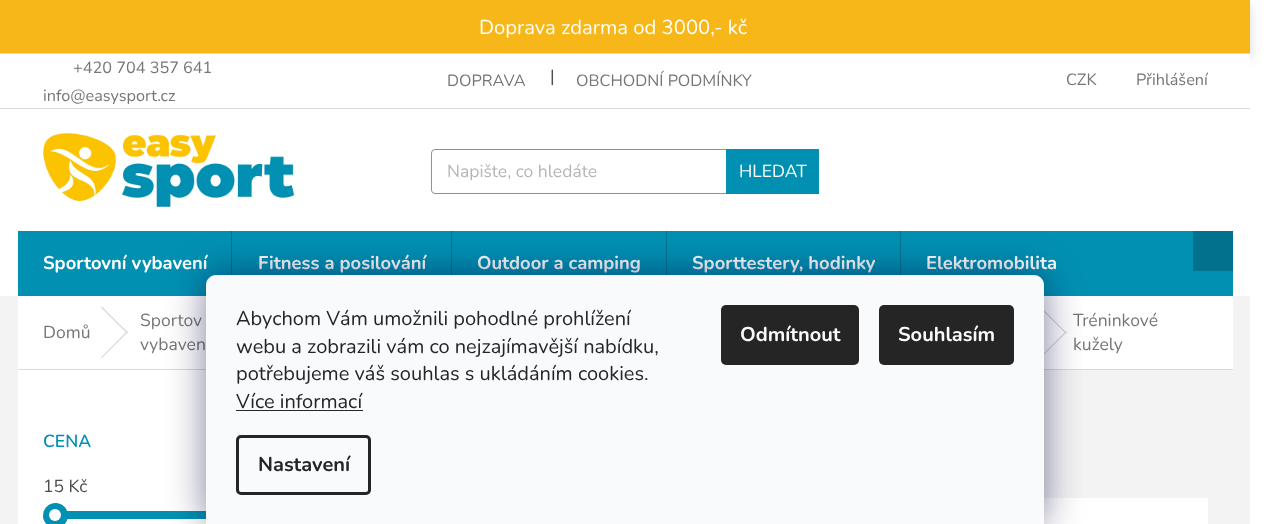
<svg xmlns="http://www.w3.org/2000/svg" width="1268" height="524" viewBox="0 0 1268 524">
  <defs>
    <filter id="blur1" x="-50%" y="-200%" width="200%" height="500%"><feGaussianBlur stdDeviation="6"/></filter>
    <filter id="blur2" x="-50%" y="-200%" width="200%" height="500%"><feGaussianBlur stdDeviation="19"/></filter>
  </defs>
  <rect width="100%" height="100%" fill="#ffffff"/>
  <rect x="0" y="296" width="1250" height="228" fill="#f3f3f3"/>
  <rect x="0" y="6" width="1250" height="53" fill="#000000" fill-opacity="0.14" filter="url(#blur1)"/>
  <rect x="0" y="0" width="1250" height="53" fill="#f8b718"/>
  <text x="479" y="34" font-family="Nunito" font-size="20.25" fill="#fefefe">Doprava zdarma od 3000,- kč</text>
  <rect x="0" y="54" width="1250" height="14" fill="#ffffff"/>
  <rect x="0" y="53" width="1250" height="1" fill="#dadada"/>
  <rect x="0" y="108" width="1250" height="1" fill="#dadada"/>
  <text x="73" y="73" font-family="Nunito" font-size="16.25" fill="#767676">+420 704 357 641</text>
  <text x="43" y="101" font-family="Nunito" font-size="16.25" fill="#767676">info@easysport.cz</text>
  <text x="447" y="86" font-family="Nunito" font-size="16.25" fill="#767676">DOPRAVA</text>
  <text x="550" y="82" font-family="Nunito" font-size="17.5" fill="#4d4d4d">|</text>
  <text x="576" y="86" font-family="Nunito" font-size="16.25" fill="#767676">OBCHODNÍ PODMÍNKY</text>
  <text x="1066" y="85" font-family="Nunito" font-size="16.25" fill="#767676">CZK</text>
  <text x="1136" y="85" font-family="Nunito" font-size="16.25" fill="#767676">Přihlášení</text>
  <image x="43" y="133" width="252" height="74" href="img1.png"/>
  <rect x="431.5" y="149.5" width="387" height="44" rx="3.5" fill="none" stroke="#919191"/>
  <text x="447" y="177" font-family="Nunito" font-size="17.5" fill="#b6b6b6">Napište, co hledáte</text>
  <rect x="726" y="149" width="93" height="45" fill="#0190b2"/>
  <text x="739" y="177" font-family="Nunito" font-size="17.5" fill="#fefefe">HLEDAT</text>
  <rect x="18" y="231" width="1215" height="65" fill="#0190b2"/>
  <text x="43" y="269" font-family="Nunito" font-size="18.4" font-weight="bold" fill="#fefefe">Sportovní vybavení</text>
  <rect x="231" y="231" width="1" height="44" fill="#01728e"/>
  <text x="258" y="269" font-family="Nunito" font-size="18.4" font-weight="bold" fill="#fefefe">Fitness a posilování</text>
  <rect x="451" y="231" width="1" height="44" fill="#01728e"/>
  <text x="477" y="269" font-family="Nunito" font-size="18.4" font-weight="bold" fill="#fefefe">Outdoor a camping</text>
  <rect x="666" y="231" width="1" height="44" fill="#01728e"/>
  <text x="692" y="269" font-family="Nunito" font-size="18.4" font-weight="bold" fill="#fefefe">Sporttestery, hodinky</text>
  <rect x="900" y="231" width="1" height="44" fill="#01728e"/>
  <text x="926" y="269" font-family="Nunito" font-size="18.4" font-weight="bold" fill="#fefefe">Elektromobilita</text>
  <rect x="1193" y="231" width="40" height="40" fill="#01728e"/>
  <rect x="18" y="296" width="1215" height="73" fill="#ffffff"/>
  <rect x="18" y="369" width="1215" height="1" fill="#dadada"/>
  <text x="43" y="338" font-family="Nunito" font-size="17.5" fill="#767676">Domů</text>
  <path d="M101 307.5L102 306.5L128 332.5L127 333.5Z" fill="#dadada"/>
  <path d="M127 331L128 332L102 358L101 357.5Z" fill="#dadada"/>
  <text x="140" y="326" font-family="Nunito" font-size="17.5" fill="#767676">Sportov</text>
  <text x="140" y="350" font-family="Nunito" font-size="17.5" fill="#767676">vybaven</text>
  <path d="M1027 295L1028 294L1067 333L1066 334Z" fill="#dadada"/>
  <path d="M1066 331L1067 332L1028 370.5L1027 370Z" fill="#dadada"/>
  <text x="1073" y="326" font-family="Nunito" font-size="17.5" fill="#767676">Tréninkové</text>
  <text x="1073" y="350" font-family="Nunito" font-size="17.5" fill="#767676">kužely</text>
  <rect x="18" y="370" width="188" height="154" fill="#ffffff"/>
  <text x="43" y="447" font-family="Nunito" font-size="17.5" font-weight="600" fill="#0190b2">CENA</text>
  <text x="43" y="492" font-family="Nunito" font-size="17.5" fill="#4d4d4d">15 Kč</text>
  <rect x="43" y="511" width="1" height="8" fill="#dadada"/>
  <rect x="67" y="511" width="139" height="8" fill="#0190b2"/>
  <circle cx="55.5" cy="515.5" r="12.5" fill="#0190b2"/>
  <circle cx="55" cy="515" r="6" fill="#ffffff"/>
  <rect x="1044" y="498" width="164" height="26" fill="#ffffff"/>
  <rect x="206" y="275" width="838" height="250" rx="10" fill="#1b1939" fill-opacity="0.5" filter="url(#blur2)"/>
  <path d="M216 275H1034C1039.5 275 1044 279.5 1044 285V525H206V285C206 279.5 210.5 275 216 275Z" fill="#f8fafb"/>
  <text x="236" y="325" font-family="Nunito" font-size="20" fill="#252525">Abychom Vám umožnili pohodlné prohlížení</text>
  <text x="236" y="353" font-family="Nunito" font-size="20" fill="#252525">webu a zobrazili vám co nejzajímavější nabídku,</text>
  <text x="236" y="380" font-family="Nunito" font-size="20" fill="#252525">potřebujeme váš souhlas s ukládáním cookies.</text>
  <text x="236" y="408" font-family="Nunito" font-size="20" fill="#252525">Více informací</text>
  <rect x="236" y="410" width="127" height="1" fill="#252525"/>
  <rect x="237.5" y="436.5" width="132" height="57" rx="3.5" fill="none" stroke="#252525" stroke-width="3"/>
  <text x="258" y="471" font-family="Nunito" font-size="20" font-weight="bold" fill="#252525">Nastavení</text>
  <rect x="721" y="305" width="138" height="60" rx="5" fill="#252525"/>
  <text x="740" y="341" font-family="Nunito" font-size="20" font-weight="bold" fill="#f8fafb">Odmítnout</text>
  <rect x="879" y="305" width="135" height="60" rx="5" fill="#252525"/>
  <text x="898" y="341" font-family="Nunito" font-size="20" font-weight="bold" fill="#f8fafb">Souhlasím</text>
</svg>
